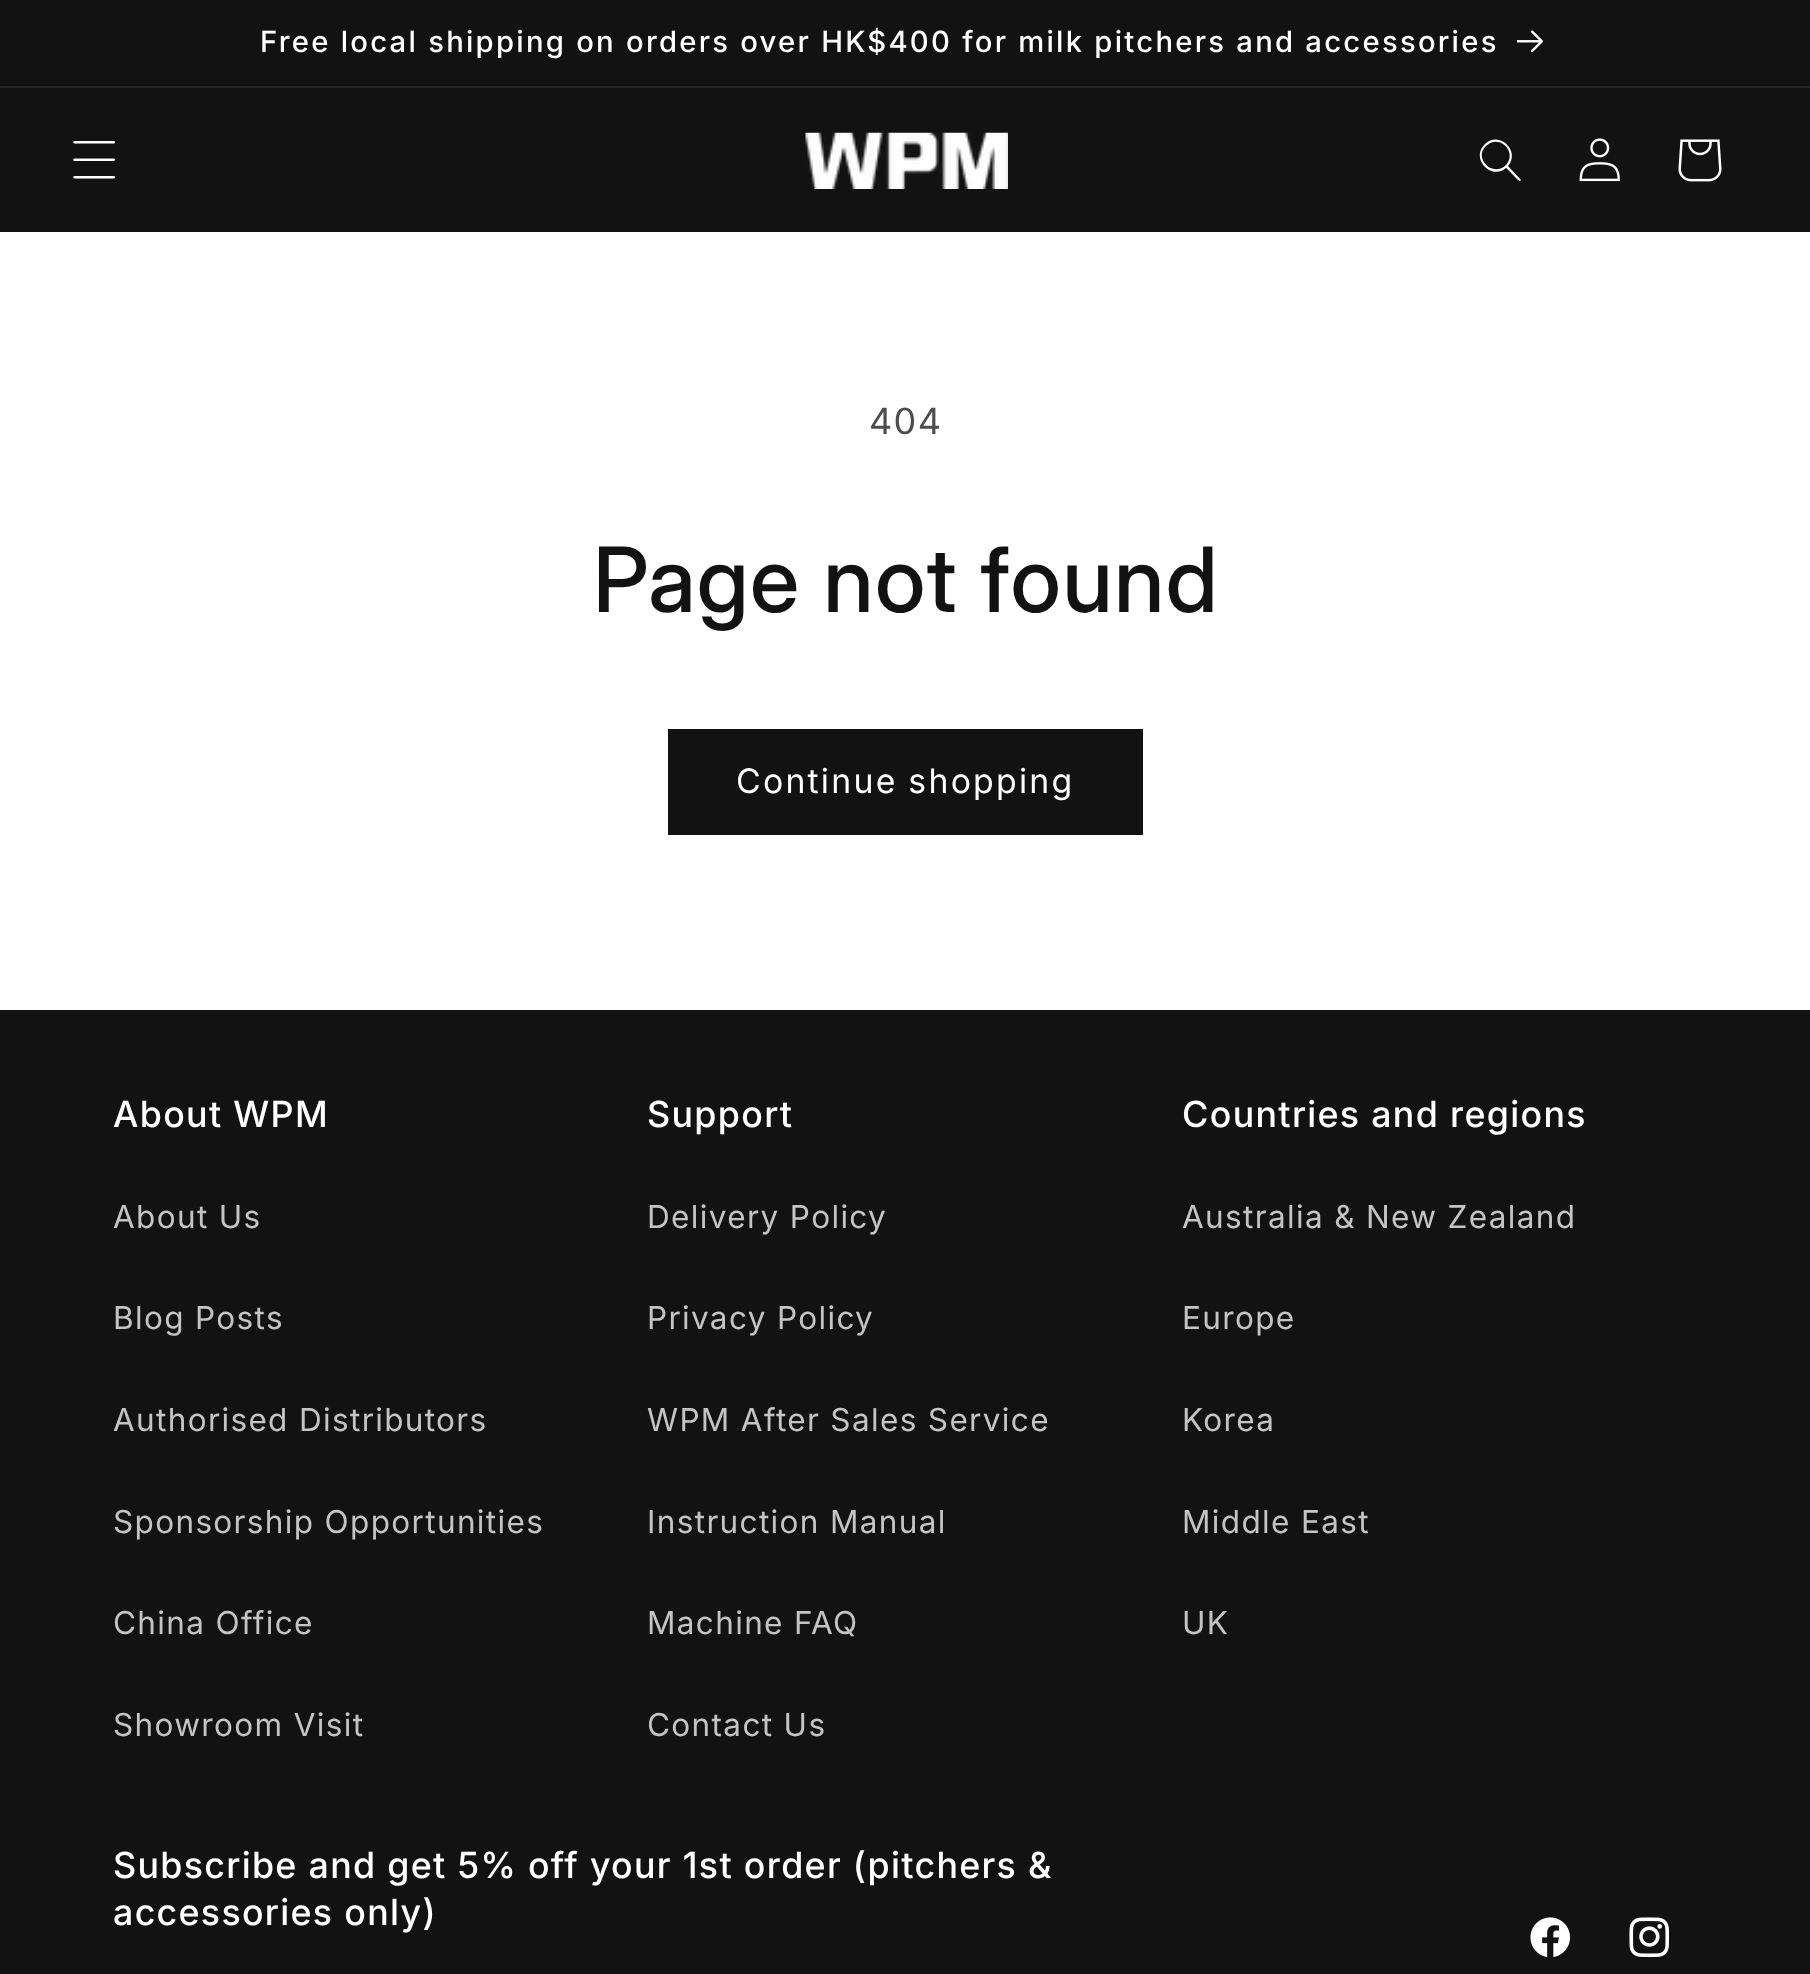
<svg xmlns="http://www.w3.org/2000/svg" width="1810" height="1974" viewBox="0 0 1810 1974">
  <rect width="100%" height="100%" fill="#ffffff"/>
  <rect x="0" y="0" width="1810" height="86" fill="#121212"/>
  <rect x="0" y="86" width="1810" height="2" fill="#252525"/>
  <text x="260" y="52" font-family="'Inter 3'" font-size="29.25" font-weight="500" letter-spacing="2.25" fill="#ffffff">Free local shipping on orders over HK$400 for milk pitchers and accessories</text>
  <image x="1517" y="30" width="26" height="23" href="img1.png"/>
  <rect x="0" y="88" width="1810" height="144" fill="#121212"/>
  <image x="73" y="141" width="42" height="38" href="img2.png"/>
  <image x="805" y="132" width="203" height="57" href="img3.png"/>
  <path d="M1506 165C1493 178 1473 158 1486 146C1499 133 1518 152 1506 165ZM1506 168C1491 181 1470 158 1485 144C1499 130 1521 151 1508 166L1521 180L1520 181C1519 182 1508 169 1506 168Z" fill="#ffffff" fill-rule="evenodd"/>
  <image x="1579" y="138" width="41" height="44" href="img4.png"/>
  <image x="1678" y="139" width="44" height="43" href="img5.png"/>
  <text x="869" y="434" font-family="Inter" font-size="36" letter-spacing="1.35" fill="#4d4d4d">404</text>
  <text x="593" y="612" font-family="Inter" font-size="90" font-weight="500" letter-spacing="1.35" fill="#121212">Page not found</text>
  <rect x="668" y="729" width="475" height="106" fill="#121212"/>
  <text x="736" y="793" word-spacing="-1" font-family="Inter" font-size="33.75" letter-spacing="2.25" fill="#ffffff">Continue shopping</text>
  <rect x="0" y="1010" width="1810" height="964" fill="#121212"/>
  <text x="113" y="1127" font-family="'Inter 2'" font-size="36" font-weight="500" letter-spacing="1.35" fill="#ffffff">About WPM</text>
  <text x="113" y="1228" font-family="Inter" font-size="31.5" letter-spacing="1.35" fill="#c4c4c4">About Us</text>
  <text x="113" y="1329" font-family="Inter" font-size="31.5" letter-spacing="1.35" fill="#c4c4c4">Blog Posts</text>
  <text x="113" y="1431" font-family="Inter" font-size="31.5" letter-spacing="1.35" fill="#c4c4c4">Authorised Distributors</text>
  <text x="113" y="1533" font-family="Inter" font-size="31.5" letter-spacing="1.35" fill="#c4c4c4">Sponsorship Opportunities</text>
  <text x="113" y="1634" font-family="Inter" font-size="31.5" letter-spacing="1.35" fill="#c4c4c4">China Office</text>
  <text x="113" y="1736" font-family="Inter" font-size="31.5" letter-spacing="1.35" fill="#c4c4c4">Showroom Visit</text>
  <text x="647" y="1127" font-family="'Inter 2'" font-size="36" font-weight="500" letter-spacing="1.35" fill="#ffffff">Support</text>
  <text x="647" y="1228" font-family="Inter" font-size="31.5" letter-spacing="1.35" fill="#c4c4c4">Delivery Policy</text>
  <text x="647" y="1329" font-family="Inter" font-size="31.5" letter-spacing="1.35" fill="#c4c4c4">Privacy Policy</text>
  <text x="647" y="1431" font-family="Inter" font-size="31.5" letter-spacing="1.35" fill="#c4c4c4">WPM After Sales Service</text>
  <text x="647" y="1533" font-family="Inter" font-size="31.5" letter-spacing="1.35" fill="#c4c4c4">Instruction Manual</text>
  <text x="647" y="1634" font-family="Inter" font-size="31.5" letter-spacing="1.35" fill="#c4c4c4">Machine FAQ</text>
  <text x="647" y="1736" font-family="Inter" font-size="31.5" letter-spacing="1.35" fill="#c4c4c4">Contact Us</text>
  <text x="1182" y="1127" font-family="'Inter 2'" font-size="36" font-weight="500" letter-spacing="1.35" fill="#ffffff">Countries and regions</text>
  <text x="1182" y="1228" font-family="Inter" font-size="31.5" letter-spacing="1.35" fill="#c4c4c4">Australia &amp; New Zealand</text>
  <text x="1182" y="1329" font-family="Inter" font-size="31.5" letter-spacing="1.35" fill="#c4c4c4">Europe</text>
  <text x="1182" y="1431" font-family="Inter" font-size="31.5" letter-spacing="1.35" fill="#c4c4c4">Korea</text>
  <text x="1182" y="1533" font-family="Inter" font-size="31.5" letter-spacing="1.35" fill="#c4c4c4">Middle East</text>
  <text x="1182" y="1634" font-family="Inter" font-size="31.5" letter-spacing="1.35" fill="#c4c4c4">UK</text>
  <text x="113" y="1878" font-family="'Inter 2'" font-size="36" font-weight="500" letter-spacing="1.35" fill="#ffffff">Subscribe and get 5% off your 1st order (pitchers &amp;</text>
  <text x="113" y="1925" font-family="'Inter 2'" font-size="36" font-weight="500" letter-spacing="1.35" fill="#ffffff">accessories only)</text>
  <image x="1530" y="1917" width="41" height="40" href="img6.png"/>
  <image x="1629" y="1917" width="41" height="41" href="img7.png"/>
</svg>
